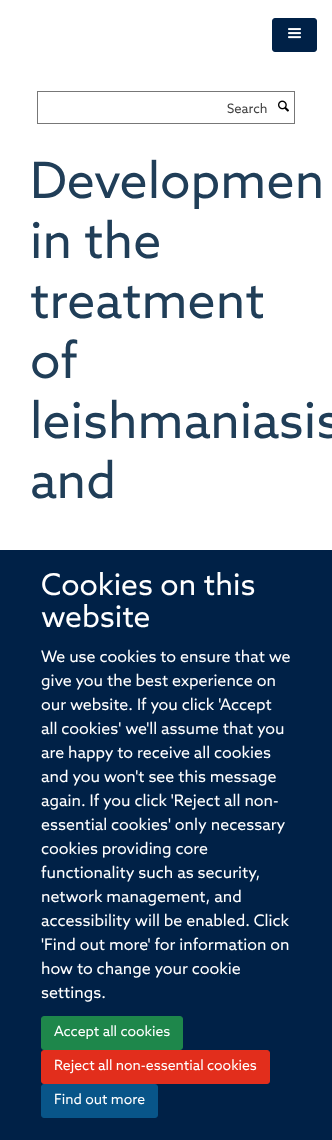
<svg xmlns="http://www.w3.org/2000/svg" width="332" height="1140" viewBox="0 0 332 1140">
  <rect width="100%" height="100%" fill="#ffffff"/>
  <rect x="272.5" y="18.5" width="44" height="33" rx="2.5" fill="#002147" stroke="#002147"/>
  <image x="288" y="28" width="13" height="11" href="img1.png"/>
  <rect x="37.5" y="91.5" width="257" height="32" fill="none" stroke="#777777"/>
  <text x="227" y="113" font-family="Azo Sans" font-size="13" fill="#444444">Search</text>
  <image x="278" y="100" width="11" height="12" href="img2.png"/>
  <text x="30" y="198" font-family="Azo Sans" font-size="50" fill="#203e58">Developmen</text>
  <text x="30" y="258" font-family="Azo Sans" font-size="50" fill="#203e58">in the</text>
  <text x="30" y="318" font-family="Azo Sans" font-size="50" fill="#203e58">treatment</text>
  <text x="30" y="378" font-family="Azo Sans" font-size="50" fill="#203e58">of</text>
  <text x="30" y="438" font-family="Azo Sans" font-size="50" fill="#203e58">leishmaniasis</text>
  <text x="30" y="498" font-family="Azo Sans" font-size="50" fill="#203e58">and</text>
  <rect x="0" y="550" width="332" height="590" fill="#002147"/>
  <text x="41" y="595" font-family="Azo Sans" font-size="30" fill="#ffffff">Cookies on this</text>
  <text x="41" y="627" font-family="Azo Sans" font-size="30" fill="#ffffff">website</text>
  <text x="41" y="662" font-family="Azo Sans" font-size="16" fill="#ffffff">We use cookies to ensure that we</text>
  <text x="41" y="686" font-family="Azo Sans" font-size="16" fill="#ffffff">give you the best experience on</text>
  <text x="41" y="710" font-family="Azo Sans" font-size="16" fill="#ffffff">our website. If you click 'Accept</text>
  <text x="41" y="734" font-family="Azo Sans" font-size="16" fill="#ffffff">all cookies' we'll assume that you</text>
  <text x="41" y="758" font-family="Azo Sans" font-size="16" fill="#ffffff">are happy to receive all cookies</text>
  <text x="41" y="782" font-family="Azo Sans" font-size="16" fill="#ffffff">and you won't see this message</text>
  <text x="41" y="806" font-family="Azo Sans" font-size="16" fill="#ffffff">again. If you click 'Reject all non-</text>
  <text x="41" y="830" font-family="Azo Sans" font-size="16" fill="#ffffff">essential cookies' only necessary</text>
  <text x="41" y="854" font-family="Azo Sans" font-size="16" fill="#ffffff">cookies providing core</text>
  <text x="41" y="878" font-family="Azo Sans" font-size="16" fill="#ffffff">functionality such as security,</text>
  <text x="41" y="902" font-family="Azo Sans" font-size="16" fill="#ffffff">network management, and</text>
  <text x="41" y="926" font-family="Azo Sans" font-size="16" fill="#ffffff">accessibility will be enabled. Click</text>
  <text x="41" y="950" font-family="Azo Sans" font-size="16" fill="#ffffff">'Find out more' for information on</text>
  <text x="41" y="974" font-family="Azo Sans" font-size="16" fill="#ffffff">how to change your cookie</text>
  <text x="41" y="998" font-family="Azo Sans" font-size="16" fill="#ffffff">settings.</text>
  <rect x="41.5" y="1016.5" width="141" height="33" rx="2.5" fill="#1e874b" stroke="#1e874b"/>
  <text x="54" y="1036" font-family="Azo Sans" font-size="14" fill="#ffffff">Accept all cookies</text>
  <rect x="41.5" y="1050.5" width="228" height="33" rx="2.5" fill="#e22e1c" stroke="#e22e1c"/>
  <text x="54" y="1070" font-family="Azo Sans" font-size="14" fill="#ffffff">Reject all non-essential cookies</text>
  <rect x="41.5" y="1084.5" width="116" height="33" rx="2.5" fill="#085589" stroke="#085589"/>
  <text x="54" y="1104" font-family="Azo Sans" font-size="14" fill="#ffffff">Find out more</text>
</svg>
